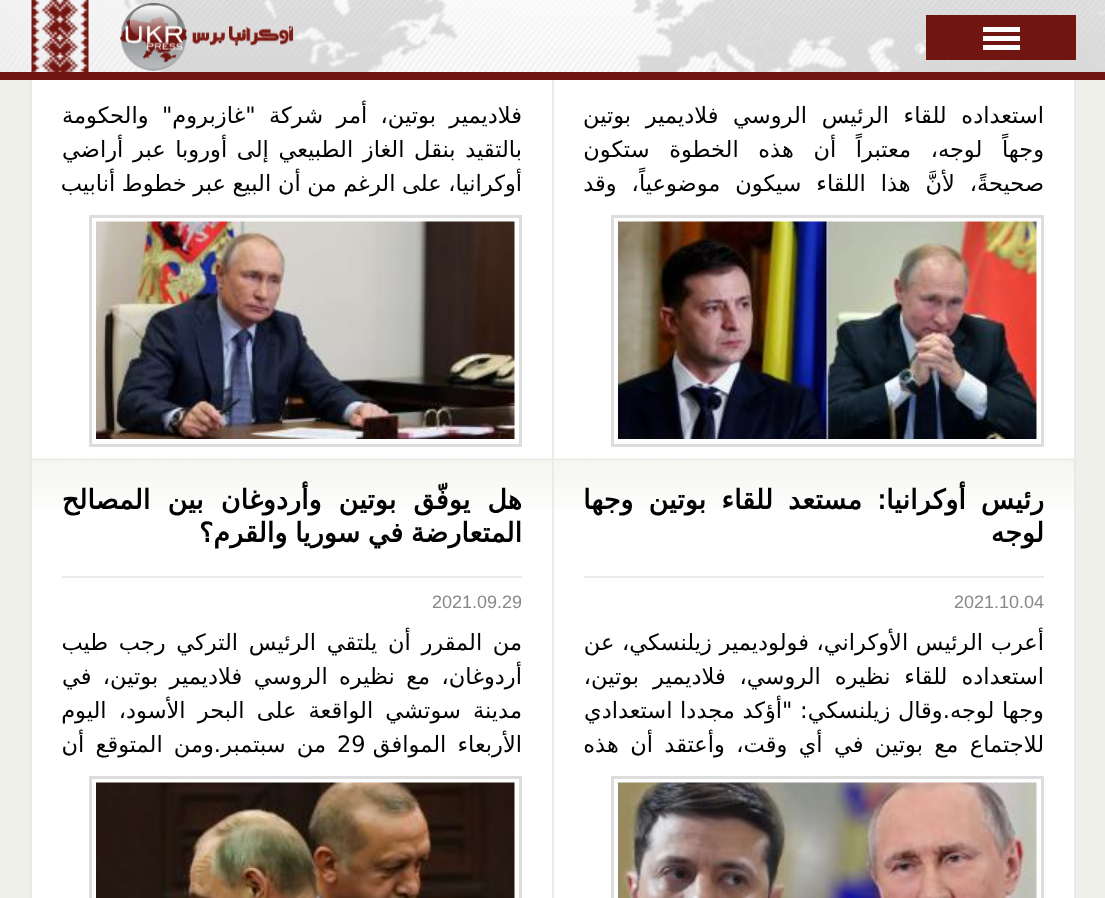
<svg xmlns="http://www.w3.org/2000/svg" width="1105" height="898" viewBox="0 0 1105 898">
  <rect width="100%" height="100%" fill="#f0f0ea"/>
  <image x="0" y="0" width="1105" height="72" href="img1.png"/>
  <rect x="0" y="72" width="1105" height="8" fill="#701510"/>
  <image x="31" y="0" width="58" height="72" href="img2.png"/>
  <rect x="926" y="15" width="150" height="45" fill="#701510"/>
  <rect x="983" y="27" width="37" height="5" fill="#ffffff"/>
  <rect x="983" y="36" width="37" height="5" fill="#ffffff"/>
  <rect x="983" y="45" width="37" height="5" fill="#ffffff"/>
  <image x="120" y="3" width="173" height="68" href="img3.png"/>
  <rect x="1074" y="80" width="2" height="818" fill="#e9e9e9"/>
  <rect x="30" y="80" width="2" height="818" fill="#e9e9e9"/>
  <rect x="32" y="80" width="1042" height="818" fill="#ffffff"/>
  <text x="1044" y="123" word-spacing="7.5" font-family="DejaVu Sans" font-size="22.5" direction="rtl" fill="#000000">استعداده للقاء الرئيس الروسي فلاديمير بوتين</text>
  <text x="1044" y="157" word-spacing="12.5" font-family="DejaVu Sans" font-size="22.5" direction="rtl" fill="#000000">وجهاً لوجه، معتبراً أن هذه الخطوة ستكون</text>
  <text x="1044" y="191" word-spacing="7.75" font-family="DejaVu Sans" font-size="22.5" direction="rtl" fill="#000000">صحيحةً، لأنَّ هذا اللقاء سيكون موضوعياً، وقد</text>
  <rect x="612.5" y="216.5" width="430" height="229" fill="none" stroke="#dddddd" stroke-width="3"/>
  <image x="618" y="221" width="419" height="218" href="img4.png"/>
  <text x="522" y="123" word-spacing="6.25" font-family="DejaVu Sans" font-size="22.5" direction="rtl" fill="#000000">فلاديمير بوتين، أمر شركة "غازبروم" والحكومة</text>
  <text x="522" y="157" word-spacing="2.5" font-family="DejaVu Sans" font-size="22.5" direction="rtl" fill="#000000">بالتقيد بنقل الغاز الطبيعي إلى أوروبا عبر أراضي</text>
  <text x="522" y="191" word-spacing="-0.5" font-family="DejaVu Sans" font-size="22.5" direction="rtl" fill="#000000">أوكرانيا، على الرغم من أن البيع عبر خطوط أنابيب</text>
  <rect x="90.5" y="216.5" width="430" height="229" fill="none" stroke="#dddddd" stroke-width="3"/>
  <image x="96" y="221" width="419" height="218" href="img5.png"/>
  <image x="554" y="458" width="520" height="51" href="img6.png"/>
  <rect x="552" y="80" width="2" height="818" fill="#eaeaea"/>
  <rect x="584" y="576" width="460" height="2" fill="#eaeaea"/>
  <text x="1044" y="509" word-spacing="6.5" font-family="DejaVu Sans" font-size="27" font-weight="bold" direction="rtl" fill="#000000">رئيس أوكرانيا: مستعد للقاء بوتين وجها</text>
  <text x="1044" y="542" font-family="DejaVu Sans" font-size="27" font-weight="bold" direction="rtl" fill="#000000">لوجه</text>
  <text x="954" y="608" font-family="Liberation Sans" font-size="18" fill="#888888">2021.10.04</text>
  <text x="1044" y="650" word-spacing="0.5" font-family="DejaVu Sans" font-size="22.5" direction="rtl" fill="#000000">أعرب الرئيس الأوكراني، فولوديمير زيلنسكي، عن</text>
  <text x="1044" y="684" word-spacing="6.75" font-family="DejaVu Sans" font-size="22.5" direction="rtl" fill="#000000">استعداده للقاء نظيره الروسي، فلاديمير بوتين،</text>
  <text x="1044" y="718" word-spacing="0.5" font-family="DejaVu Sans" font-size="22.5" direction="rtl" fill="#000000">وجها لوجه.وقال زيلنسكي: "أؤكد مجددا استعدادي</text>
  <text x="1044" y="752" word-spacing="4.25" font-family="DejaVu Sans" font-size="22.5" direction="rtl" fill="#000000">للاجتماع مع بوتين في أي وقت، وأعتقد أن هذه</text>
  <rect x="612.5" y="777.5" width="430" height="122" fill="none" stroke="#dddddd" stroke-width="3"/>
  <image x="618" y="782" width="419" height="116" href="img7.png"/>
  <image x="32" y="458" width="520" height="51" href="img8.png"/>
  <rect x="62" y="576" width="460" height="2" fill="#eaeaea"/>
  <text x="522" y="509" word-spacing="8.5" font-family="DejaVu Sans" font-size="27" font-weight="bold" direction="rtl" fill="#000000">هل يوفّق بوتين وأردوغان بين المصالح</text>
  <text x="522" y="542" word-spacing="-1" font-family="DejaVu Sans" font-size="27" font-weight="bold" direction="rtl" fill="#000000">المتعارضة في سوريا والقرم؟</text>
  <text x="432" y="608" font-family="Liberation Sans" font-size="18" fill="#888888">2021.09.29</text>
  <text x="522" y="650" word-spacing="3.5" font-family="DejaVu Sans" font-size="22.5" direction="rtl" fill="#000000">من المقرر أن يلتقي الرئيس التركي رجب طيب</text>
  <text x="522" y="684" word-spacing="4.25" font-family="DejaVu Sans" font-size="22.5" direction="rtl" fill="#000000">أردوغان، مع نظيره الروسي فلاديمير بوتين، في</text>
  <text x="522" y="718" word-spacing="5" font-family="DejaVu Sans" font-size="22.5" direction="rtl" fill="#000000">مدينة سوتشي الواقعة على البحر الأسود، اليوم</text>
  <text x="522" y="752" word-spacing="4" font-family="DejaVu Sans" font-size="22.5" direction="rtl" fill="#000000">الأربعاء الموافق</text>
  <text x="337" y="752" font-family="DejaVu Sans" font-size="22.5" fill="#000000">29</text>
  <text x="326" y="752" word-spacing="4" font-family="DejaVu Sans" font-size="22.5" direction="rtl" fill="#000000">من سبتمبر.ومن المتوقع أن</text>
  <rect x="90.5" y="777.5" width="430" height="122" fill="none" stroke="#dddddd" stroke-width="3"/>
  <image x="96" y="782" width="419" height="116" href="img9.png"/>
</svg>
